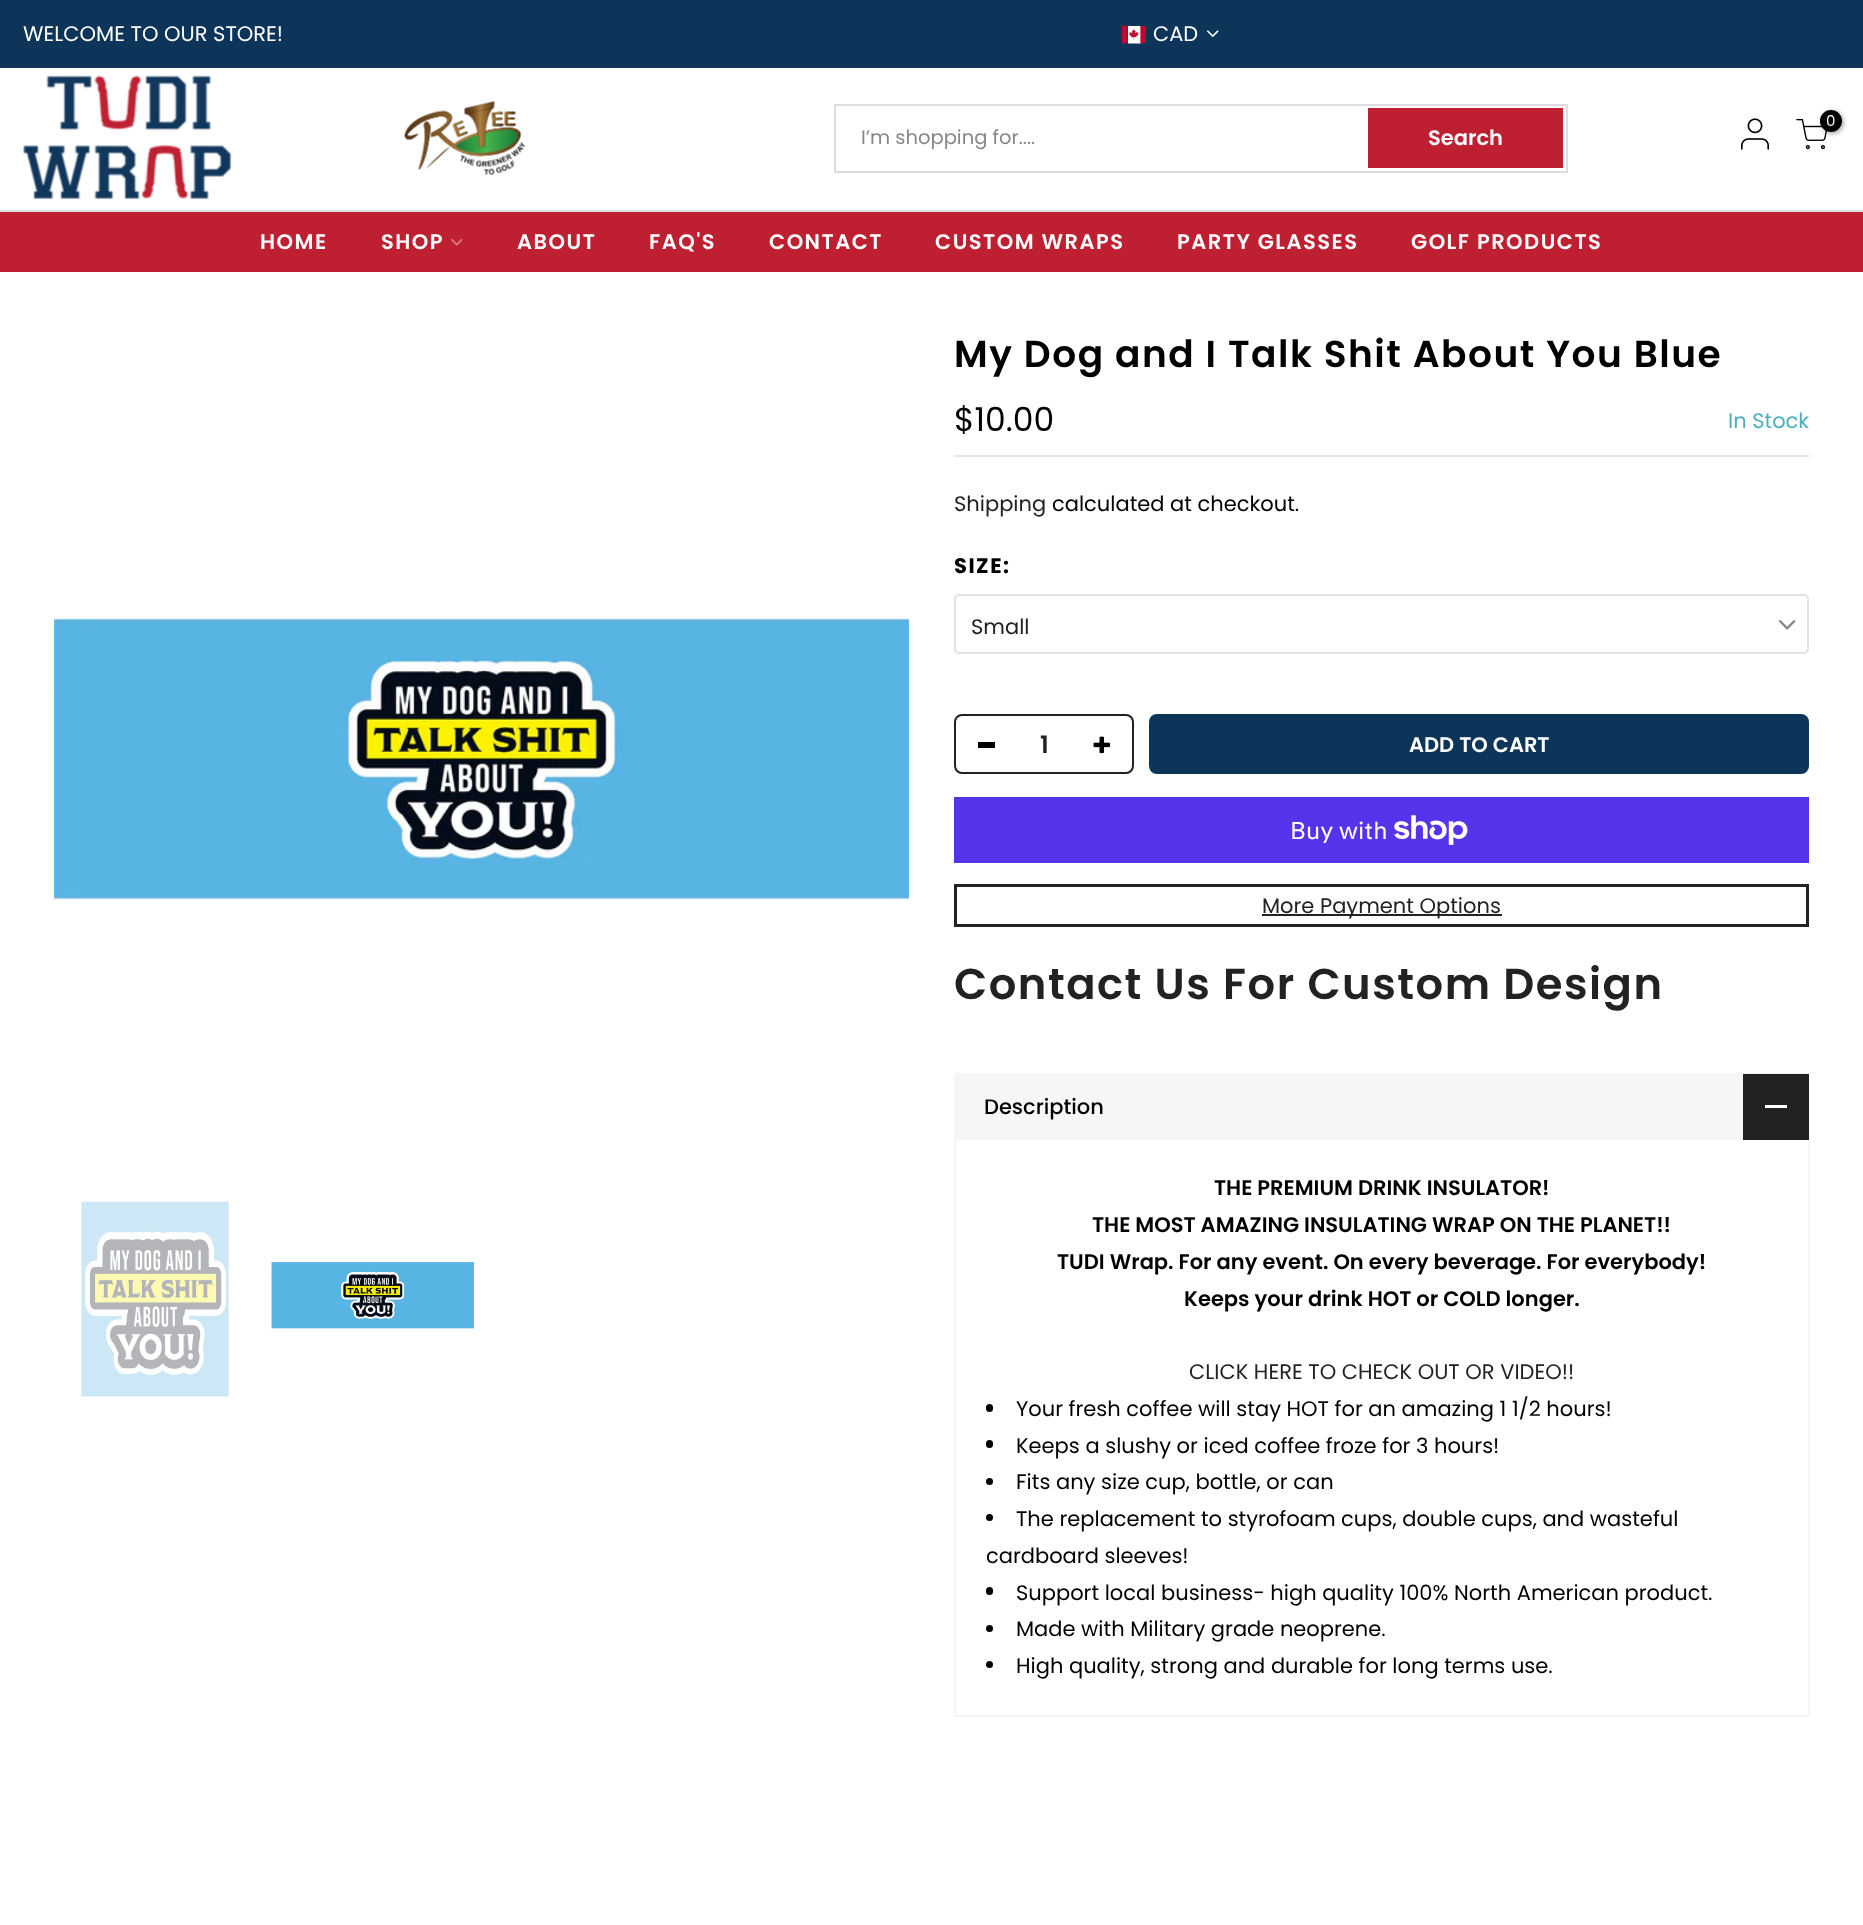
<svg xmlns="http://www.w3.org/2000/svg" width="1863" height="1925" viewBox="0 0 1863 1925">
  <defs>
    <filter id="blur1" x="-50%" y="-200%" width="200%" height="500%"><feGaussianBlur stdDeviation="2"/></filter>
  </defs>
  <rect width="100%" height="100%" fill="#ffffff"/>
  <rect x="0" y="0" width="1863" height="68" fill="#0d355a"/>
  <text x="23" y="41" font-family="Poppins" font-size="21" fill="#ffffff">WELCOME TO OUR STORE!</text>
  <image x="1122" y="26" width="24" height="18" href="img1.png"/>
  <text x="1153" y="41" font-family="Poppins" font-size="21" fill="#ffffff">CAD</text>
  <image x="1207" y="30" width="12" height="8" href="img2.png"/>
  <image x="23" y="75" width="209" height="125" href="img3.png"/>
  <image x="404" y="101" width="122" height="74" href="img4.png"/>
  <image x="1741" y="118" width="28" height="32" href="img5.png"/>
  <image x="1796" y="118" width="31" height="32" href="img6.png"/>
  <rect x="1821" y="111" width="23" height="23" rx="11.5" fill="#000000" fill-opacity="0.3" filter="url(#blur1)"/>
  <circle cx="1831" cy="121" r="11" fill="#000000"/>
  <text x="1826" y="126" font-family="Poppins" font-size="15" fill="#ffffff">0</text>
  <rect x="835" y="105" width="732" height="67" fill="none" stroke="#dddddd" stroke-width="2"/>
  <text x="861" y="144" font-family="Poppins" font-size="19.5" fill="#878787">I’m shopping for....</text>
  <rect x="1368" y="108" width="195" height="60" fill="#be1f31"/>
  <text x="1428" y="145" font-family="Poppins" font-size="21" font-weight="600" fill="#ffffff">Search</text>
  <rect x="0" y="212" width="1863" height="60" fill="#be1f31"/>
  <rect x="0" y="210" width="1863" height="2" fill="#dddddd"/>
  <text x="260" y="249" font-family="Poppins" font-size="21" font-weight="600" letter-spacing="1.5" fill="#ffffff">HOME</text>
  <text x="381" y="249" font-family="Poppins" font-size="21" font-weight="600" letter-spacing="1.5" fill="#ffffff">SHOP</text>
  <image x="451" y="238" width="12" height="8" href="img7.png"/>
  <text x="517" y="249" font-family="Poppins" font-size="21" font-weight="600" letter-spacing="1.5" fill="#ffffff">ABOUT</text>
  <text x="649" y="249" font-family="Poppins" font-size="21" font-weight="600" letter-spacing="1.5" fill="#ffffff">FAQ'S</text>
  <text x="769" y="249" font-family="Poppins" font-size="21" font-weight="600" letter-spacing="1.5" fill="#ffffff">CONTACT</text>
  <text x="935" y="249" font-family="Poppins" font-size="21" font-weight="600" letter-spacing="1.5" fill="#ffffff">CUSTOM WRAPS</text>
  <text x="1177" y="249" font-family="Poppins" font-size="21" font-weight="600" letter-spacing="1.5" fill="#ffffff">PARTY GLASSES</text>
  <text x="1411" y="249" font-family="Poppins" font-size="21" font-weight="600" letter-spacing="1.5" fill="#ffffff">GOLF PRODUCTS</text>
  <image x="54" y="618" width="855" height="284" href="img8.png"/>
  <image x="81" y="1201" width="148" height="196" href="img9.png"/>
  <image x="271" y="1262" width="203" height="67" href="img10.png"/>
  <text x="954" y="367" font-family="Poppins" font-size="37.5" font-weight="600" letter-spacing="1.5" fill="#000000">My Dog and I Talk Shit About You Blue</text>
  <rect x="954" y="455" width="855" height="2" fill="#e5e5e5"/>
  <text x="954" y="431" font-family="Poppins" font-size="33" fill="#000000">$10.00</text>
  <text x="1728" y="428" font-family="Poppins" font-size="21" fill="#4eb0be">In Stock</text>
  <text x="954" y="511" font-family="Poppins" font-size="21" fill="#222222">Shipping</text>
  <text x="1052" y="511" font-family="Poppins" font-size="21" fill="#000000">calculated at checkout.</text>
  <text x="954" y="573" font-family="Poppins" font-size="21" font-weight="bold" letter-spacing="1.5" fill="#000000">SIZE:</text>
  <rect x="955" y="595" width="853" height="58" rx="4" fill="none" stroke="#e3e3e3" stroke-width="2"/>
  <text x="971" y="634" font-family="Poppins" font-size="21" fill="#222222">Small</text>
  <image x="1778" y="620" width="18" height="10" href="img11.png"/>
  <rect x="955" y="715" width="178" height="58" rx="7" fill="none" stroke="#222222" stroke-width="2"/>
  <text x="1040" y="753" font-family="Poppins" font-size="24" font-weight="600" fill="#222222">1</text>
  <rect x="978" y="742" width="17" height="6" fill="#000000"/>
  <image x="1093" y="736" width="17" height="18" href="img12.png"/>
  <rect x="1149" y="714" width="660" height="60" rx="8" fill="#0d355a"/>
  <text x="1409" y="752" font-family="Poppins" font-size="21" font-weight="600" fill="#ffffff">ADD TO CART</text>
  <rect x="954" y="797" width="855" height="66" fill="#5433eb"/>
  <text x="1290" y="839" font-family="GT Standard" font-size="24" fill="#ffffff">Buy with</text>
  <image x="1394" y="815" width="74" height="30" href="img13.png"/>
  <rect x="955.5" y="885.5" width="852" height="40" fill="none" stroke="#222222" stroke-width="3"/>
  <rect x="1262" y="914" width="240" height="2" fill="#222222"/>
  <text x="1262" y="913" font-family="Poppins" font-size="21" fill="#222222">More Payment Options</text>
  <text x="954" y="999" font-family="Poppins" font-size="43.25" font-weight="600" letter-spacing="1.5" fill="#222222">Contact Us For Custom Design</text>
  <rect x="954" y="1073" width="855" height="67" fill="#f6f6f8"/>
  <text x="984" y="1114" font-family="Poppins" font-size="21" font-weight="500" fill="#000000">Description</text>
  <rect x="1743" y="1074" width="66" height="66" fill="#222222"/>
  <rect x="1765" y="1105" width="22" height="3" fill="#ffffff"/>
  <rect x="1808" y="1140" width="2" height="576" fill="#f5f5f5"/>
  <rect x="954" y="1715" width="855" height="2" fill="#f5f5f5"/>
  <rect x="954" y="1140" width="2" height="576" fill="#f5f5f5"/>
  <text x="1214" y="1195" font-family="Poppins" font-size="21" font-weight="600" fill="#000000">THE PREMIUM DRINK INSULATOR!</text>
  <text x="1092" y="1232" font-family="Poppins" font-size="21" font-weight="600" fill="#000000">THE MOST AMAZING INSULATING WRAP ON THE PLANET!!</text>
  <text x="1057" y="1269" font-family="Poppins" font-size="21" font-weight="600" fill="#000000">TUDI Wrap. For any event. On every beverage. For everybody!</text>
  <text x="1184" y="1306" font-family="Poppins" font-size="21" font-weight="600" fill="#000000">Keeps your drink HOT or COLD longer.</text>
  <text x="1189" y="1379" font-family="Poppins" font-size="21" fill="#222222">CLICK HERE TO CHECK OUT OR VIDEO!!</text>
  <rect x="986" y="1404" width="7" height="8" rx="3.5" fill="#000000"/>
  <text x="1016" y="1416" font-family="Poppins" font-size="21" fill="#000000">Your fresh coffee will stay HOT for an amazing 1 1/2 hours!</text>
  <rect x="986" y="1440" width="7" height="8" rx="3.5" fill="#000000"/>
  <text x="1016" y="1453" font-family="Poppins" font-size="21" fill="#000000">Keeps a slushy or iced coffee froze for 3 hours!</text>
  <circle cx="989.5" cy="1481.5" r="3.5" fill="#000000"/>
  <text x="1016" y="1489" font-family="Poppins" font-size="21" fill="#000000">Fits any size cup, bottle, or can</text>
  <circle cx="989.5" cy="1517.5" r="3.5" fill="#000000"/>
  <text x="1016" y="1526" font-family="Poppins" font-size="21" fill="#000000">The replacement to styrofoam cups, double cups, and wasteful</text>
  <text x="986" y="1563" font-family="Poppins" font-size="21" fill="#000000">cardboard sleeves!</text>
  <rect x="986" y="1587" width="7" height="8" rx="3.5" fill="#000000"/>
  <text x="1016" y="1600" font-family="Poppins" font-size="21" fill="#000000">Support local business- high quality 100% North American product.</text>
  <circle cx="989.5" cy="1628.5" r="3.5" fill="#000000"/>
  <text x="1016" y="1636" font-family="Poppins" font-size="21" fill="#000000">Made with Military grade neoprene.</text>
  <circle cx="989.5" cy="1664.5" r="3.5" fill="#000000"/>
  <text x="1016" y="1673" font-family="Poppins" font-size="21" fill="#000000">High quality, strong and durable for long terms use.</text>
</svg>
